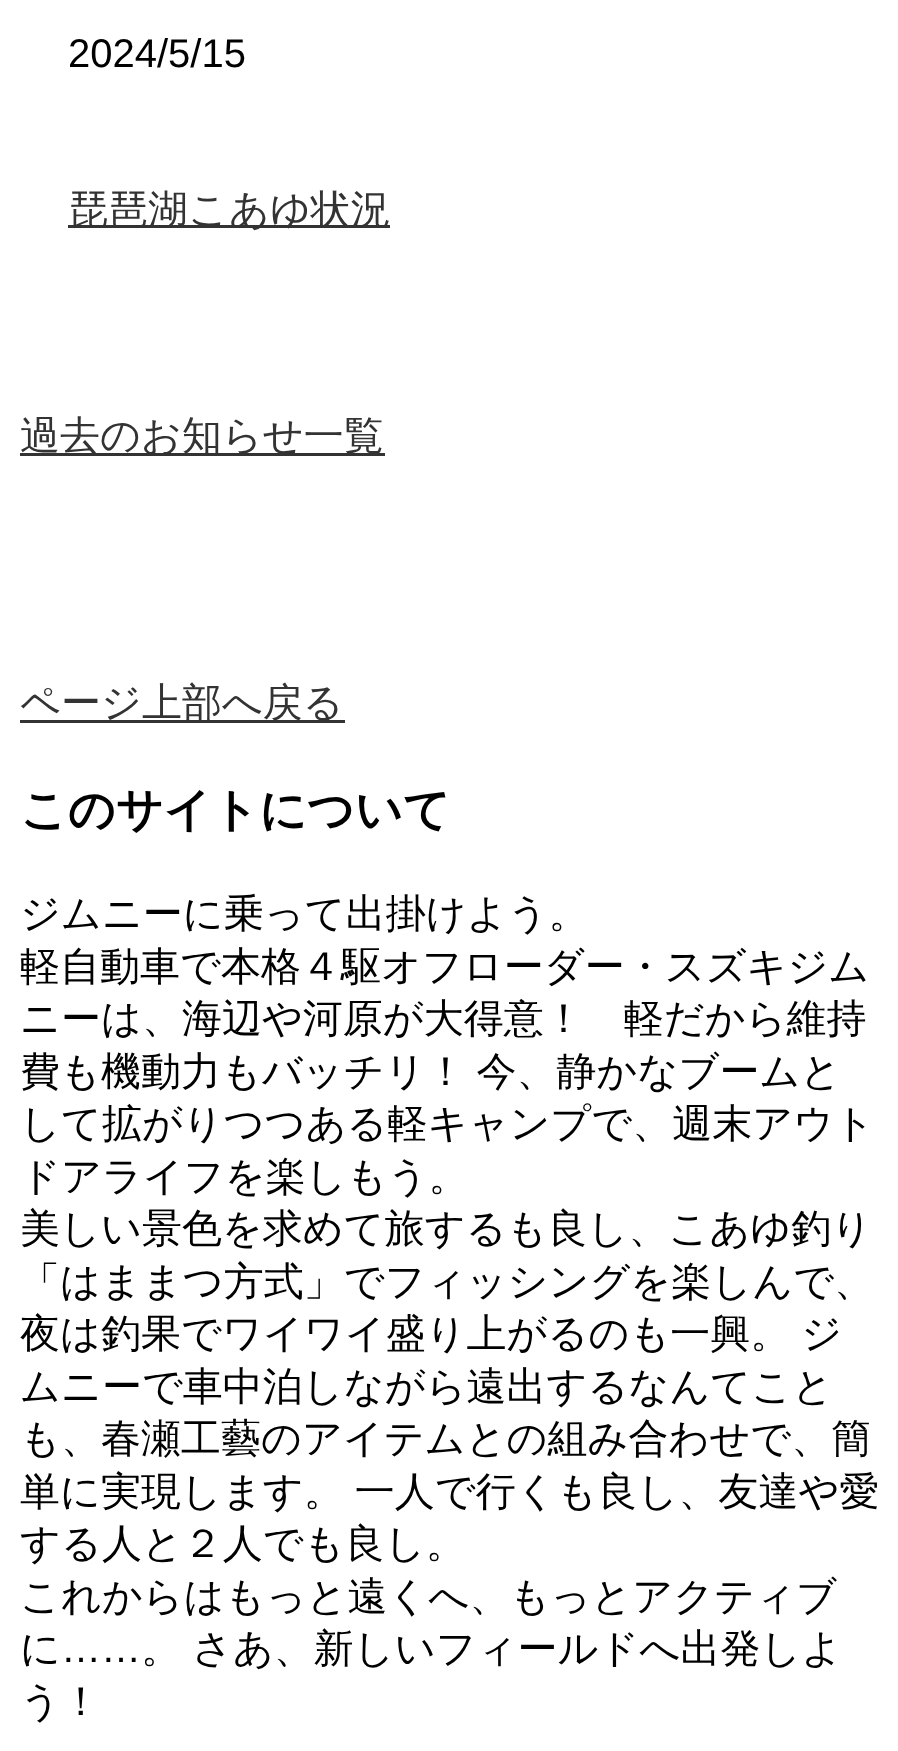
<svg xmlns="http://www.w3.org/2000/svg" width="898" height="1751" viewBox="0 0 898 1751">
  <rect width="100%" height="100%" fill="#ffffff"/>
  <text x="68" y="67" font-family="Liberation Sans" font-size="40" fill="#000000">2024/5/15</text>
  <rect x="68" y="225" width="322" height="3" fill="#333333"/>
  <text x="68" y="223" font-family="WenQuanYi Zen Hei" font-size="40" font-weight="500" fill="#333333">琵琶湖こあゆ状況</text>
  <rect x="20" y="453" width="365" height="3" fill="#333333"/>
  <text x="20" y="449" font-family="WenQuanYi Zen Hei" font-size="40" font-weight="500" fill="#333333">過去のお知らせ一覧</text>
  <rect x="20" y="720" width="325" height="3" fill="#333333"/>
  <text x="20" y="716" font-family="WenQuanYi Zen Hei" font-size="40" font-weight="500" fill="#333333">ページ上部へ戻る</text>
  <text x="20" y="826" font-family="WenQuanYi Zen Hei" font-size="46.75" font-weight="bold" fill="#000000">このサイトについて</text>
  <text x="20" y="927" font-family="WenQuanYi Zen Hei" font-size="40" font-weight="500" fill="#000000">ジムニーに乗って出掛けよう。</text>
  <text x="20" y="980" font-family="WenQuanYi Zen Hei" font-size="40" font-weight="500" fill="#000000">軽自動車で本格４駆オフローダー・スズキジム</text>
  <text x="20" y="1032" font-family="WenQuanYi Zen Hei" font-size="40" font-weight="500" fill="#000000">ニーは、海辺や河原が大得意！　軽だから維持</text>
  <text x="20" y="1085" word-spacing="-1" font-family="WenQuanYi Zen Hei" font-size="40" font-weight="500" fill="#000000">費も機動力もバッチリ！ 今、静かなブームと</text>
  <text x="20" y="1137" font-family="WenQuanYi Zen Hei" font-size="40" font-weight="500" fill="#000000">して拡がりつつある軽キャンプで、週末アウト</text>
  <text x="20" y="1190" font-family="WenQuanYi Zen Hei" font-size="40" font-weight="500" fill="#000000">ドアライフを楽しもう。</text>
  <text x="20" y="1242" font-family="WenQuanYi Zen Hei" font-size="40" font-weight="500" fill="#000000">美しい景色を求めて旅するも良し、こあゆ釣り</text>
  <text x="20" y="1295" font-family="WenQuanYi Zen Hei" font-size="40" font-weight="500" fill="#000000">「はままつ方式」でフィッシングを楽しんで、</text>
  <text x="20" y="1347" word-spacing="-1" font-family="WenQuanYi Zen Hei" font-size="40" font-weight="500" fill="#000000">夜は釣果でワイワイ盛り上がるのも一興。 ジ</text>
  <text x="20" y="1400" font-family="WenQuanYi Zen Hei" font-size="40" font-weight="500" fill="#000000">ムニーで車中泊しながら遠出するなんてこと</text>
  <text x="20" y="1452" font-family="WenQuanYi Zen Hei" font-size="40" font-weight="500" fill="#000000">も、春瀬工藝のアイテムとの組み合わせで、簡</text>
  <text x="20" y="1505" word-spacing="-1" font-family="WenQuanYi Zen Hei" font-size="40" font-weight="500" fill="#000000">単に実現します。 一人で行くも良し、友達や愛</text>
  <text x="20" y="1557" font-family="WenQuanYi Zen Hei" font-size="40" font-weight="500" fill="#000000">する人と２人でも良し。</text>
  <text x="20" y="1610" font-family="WenQuanYi Zen Hei" font-size="40" font-weight="500" fill="#000000">これからはもっと遠くへ、もっとアクティブ</text>
  <text x="20" y="1662" font-family="WenQuanYi Zen Hei" font-size="40" font-weight="500" fill="#000000">に</text>
  <text x="61" y="1662" font-family="Liberation Sans" font-size="40" fill="#000000">……</text>
  <text x="141" y="1662" word-spacing="-1" font-family="WenQuanYi Zen Hei" font-size="40" font-weight="500" fill="#000000">。 さあ、新しいフィールドへ出発しよ</text>
  <text x="20" y="1715" font-family="WenQuanYi Zen Hei" font-size="40" font-weight="500" fill="#000000">う！</text>
</svg>
